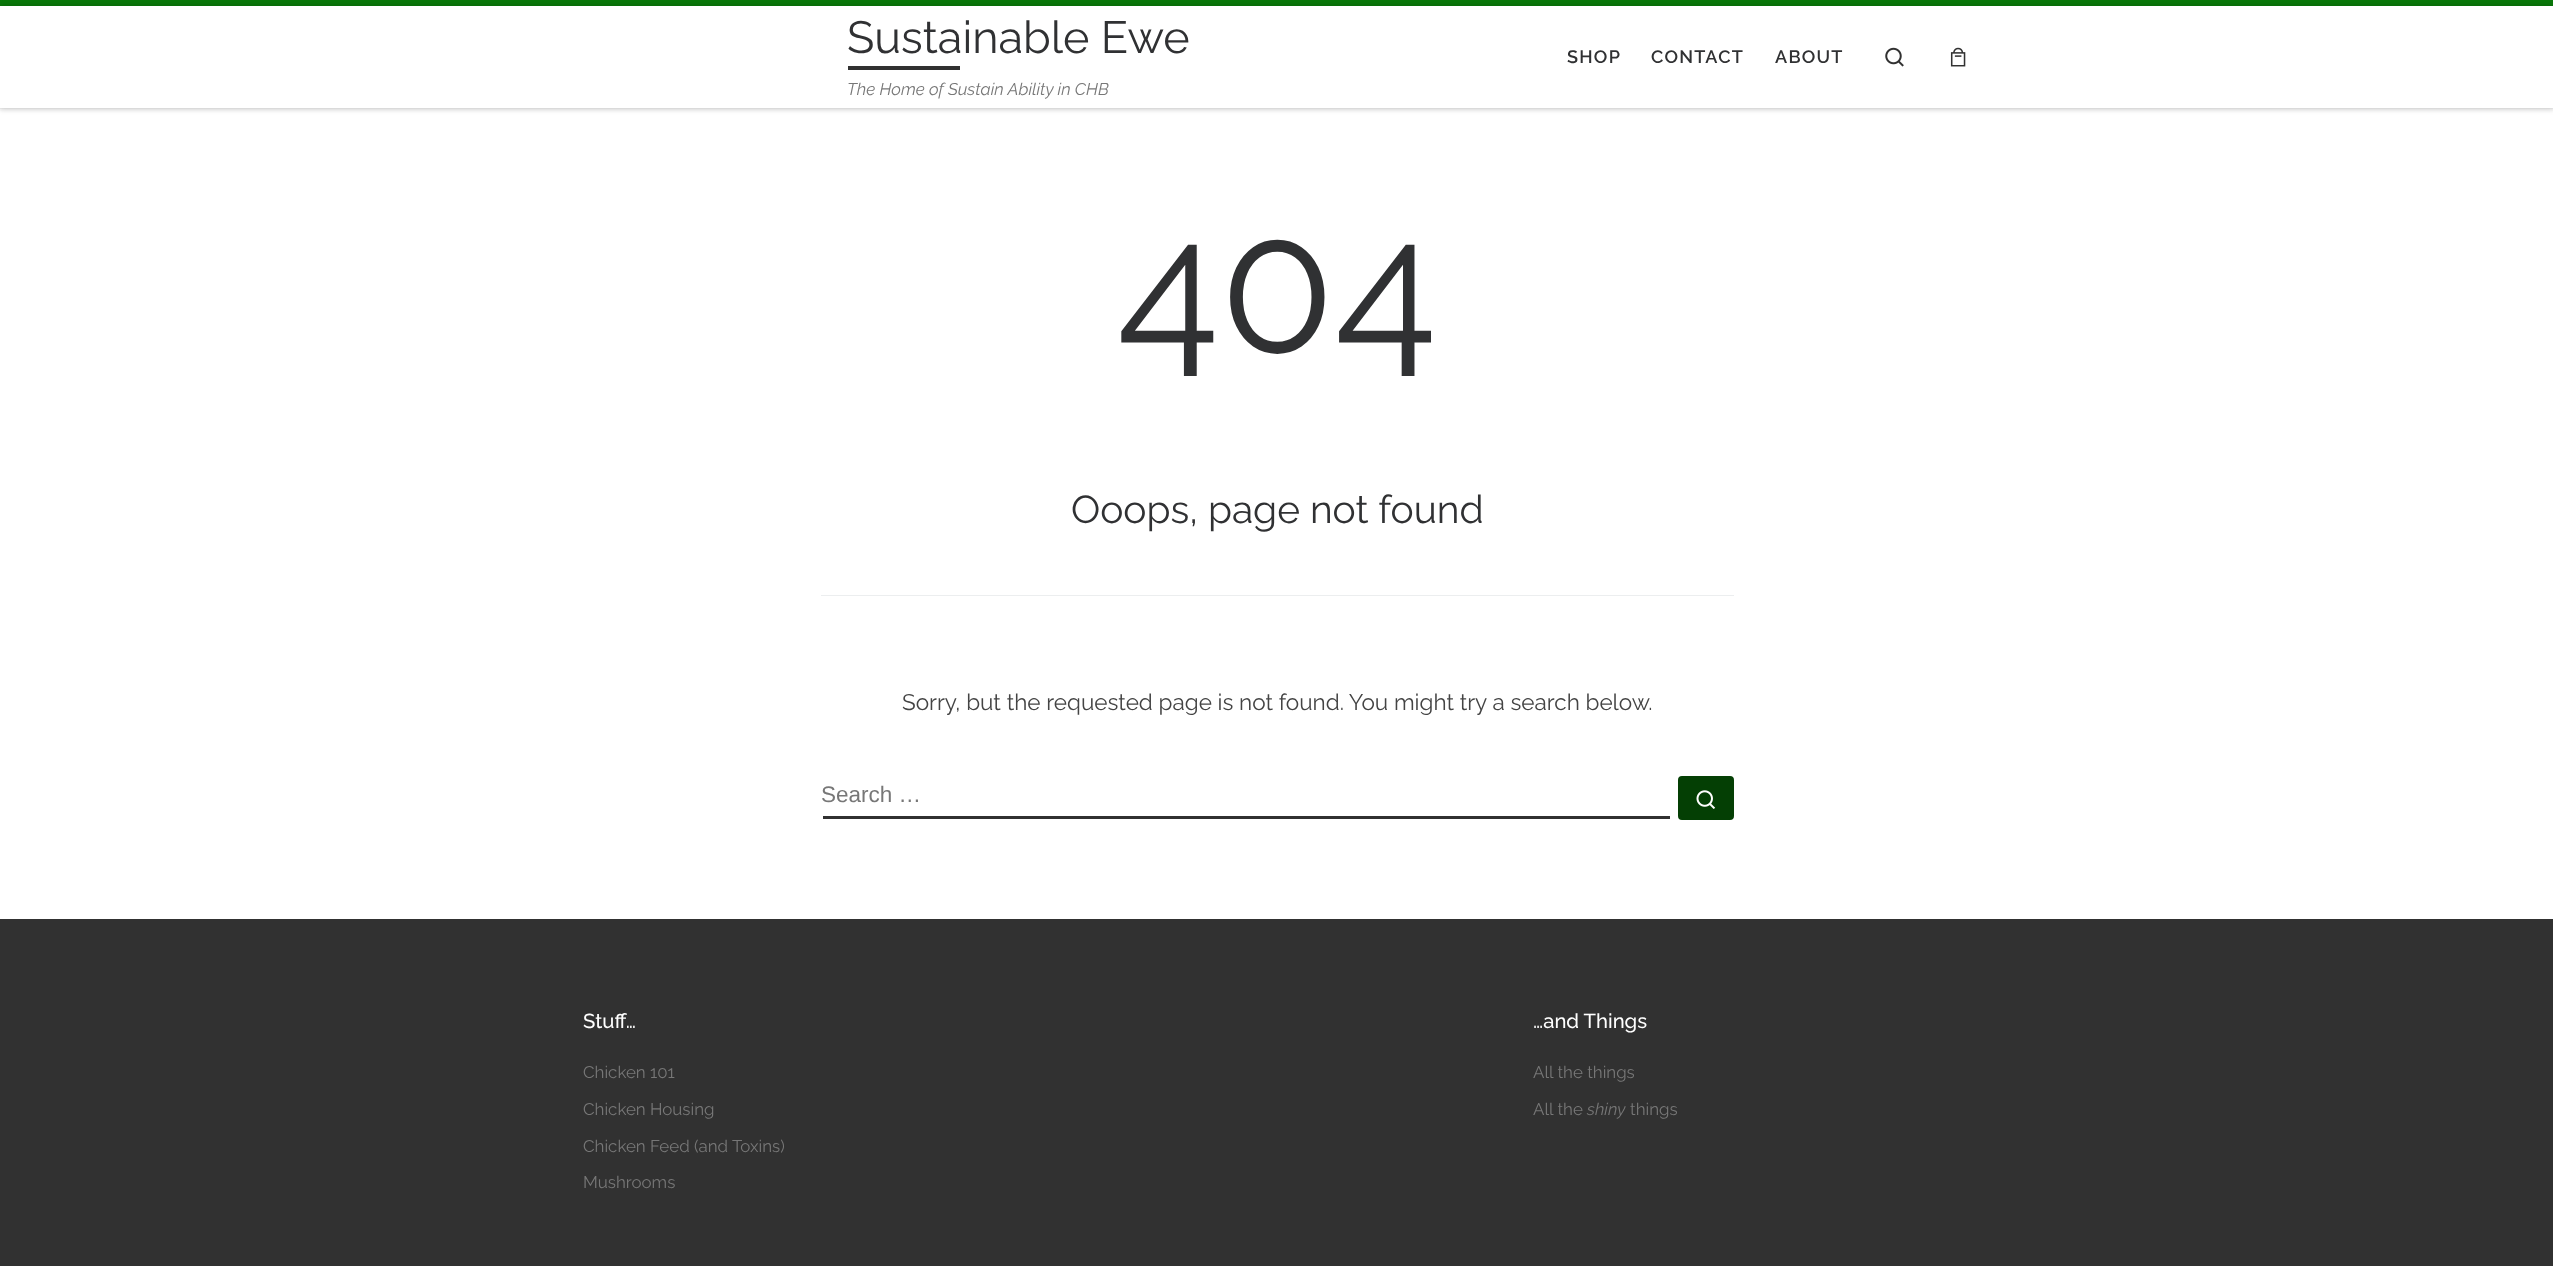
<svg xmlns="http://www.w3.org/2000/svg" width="2553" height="1266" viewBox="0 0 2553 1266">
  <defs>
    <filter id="blur1" x="-50%" y="-200%" width="200%" height="500%"><feGaussianBlur stdDeviation="1"/></filter>
    <filter id="blur2" x="-50%" y="-200%" width="200%" height="500%"><feGaussianBlur stdDeviation="3"/></filter>
  </defs>
  <rect width="100%" height="100%" fill="#ffffff"/>
  <rect x="0" y="3" width="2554" height="108" fill="#666666" fill-opacity="0.08" filter="url(#blur1)"/>
  <rect x="0" y="0" width="2553" height="6" fill="#087808"/>
  <path d="M0 108V109H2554V8V108Z" fill="#efefef"/>
  <rect x="0" y="6" width="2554" height="102" fill="#000000" fill-opacity="0.2" filter="url(#blur2)"/>
  <rect x="0" y="6" width="2553" height="102" fill="#ffffff"/>
  <text x="847" y="53" font-family="Raleway" font-size="45" fill="#303133">Sustainable Ewe</text>
  <rect x="848" y="66" width="112" height="4" fill="#313131"/>
  <text x="847" y="95" font-family="Raleway" font-size="16.9" font-style="italic" fill="#777777">The Home of Sustain Ability in CHB</text>
  <text x="1567" y="63" font-family="Raleway" font-size="18" font-weight="600" letter-spacing="1.25" fill="#303133">SHOP</text>
  <text x="1651" y="63" font-family="Raleway" font-size="18" font-weight="600" letter-spacing="1.25" fill="#303133">CONTACT</text>
  <text x="1775" y="63" font-family="Raleway" font-size="18" font-weight="600" letter-spacing="1.25" fill="#303133">ABOUT</text>
  <image x="1885" y="47" width="19" height="20" href="img1.png"/>
  <image x="1950" y="47" width="16" height="20" href="img2.png"/>
  <text x="1117" y="352" font-family="Raleway" font-size="188" fill="#303133">404</text>
  <text x="1071" y="523" font-family="Raleway" font-size="38.9" fill="#303133">Ooops, page not found</text>
  <rect x="821" y="595" width="913" height="1" fill="#eceeef"/>
  <text x="902" y="710" font-family="Raleway" font-size="22.5" fill="#444444">Sorry, but the requested page is not found. You might try a search below.</text>
  <rect x="823" y="816" width="847" height="3" fill="#313131"/>
  <text x="821" y="802" font-family="Liberation Sans" font-size="22.5" fill="#777777">Search …</text>
  <rect x="1679.5" y="777.5" width="53" height="41" rx="2.5" fill="#043f04" stroke="#043f04" stroke-width="3"/>
  <image x="1696" y="790" width="20" height="19" href="img3.png"/>
  <rect x="0" y="919" width="2553" height="347" fill="#313131"/>
  <text x="583" y="1028" font-family="Raleway" font-size="20.25" font-weight="500" fill="#ffffff">Stuff…</text>
  <text x="583" y="1078" font-family="Raleway" font-size="16.9" fill="#777777">Chicken 101</text>
  <text x="583" y="1115" font-family="Raleway" font-size="16.9" fill="#777777">Chicken Housing</text>
  <text x="583" y="1152" font-family="Raleway" font-size="16.9" fill="#777777">Chicken Feed (and Toxins)</text>
  <text x="583" y="1188" font-family="Raleway" font-size="16.9" fill="#777777">Mushrooms</text>
  <text x="1533" y="1028" font-family="Raleway" font-size="20.25" font-weight="500" fill="#ffffff">…and Things</text>
  <text x="1533" y="1078" font-family="Raleway" font-size="16.9" fill="#777777">All the things</text>
  <text x="1533" y="1115" font-family="Raleway" font-size="16.9" fill="#777777">All the</text>
  <text x="1587" y="1115" font-family="Raleway" font-size="16.9" font-style="italic" fill="#777777">shiny</text>
  <text x="1630" y="1115" font-family="Raleway" font-size="16.9" fill="#777777">things</text>
</svg>
